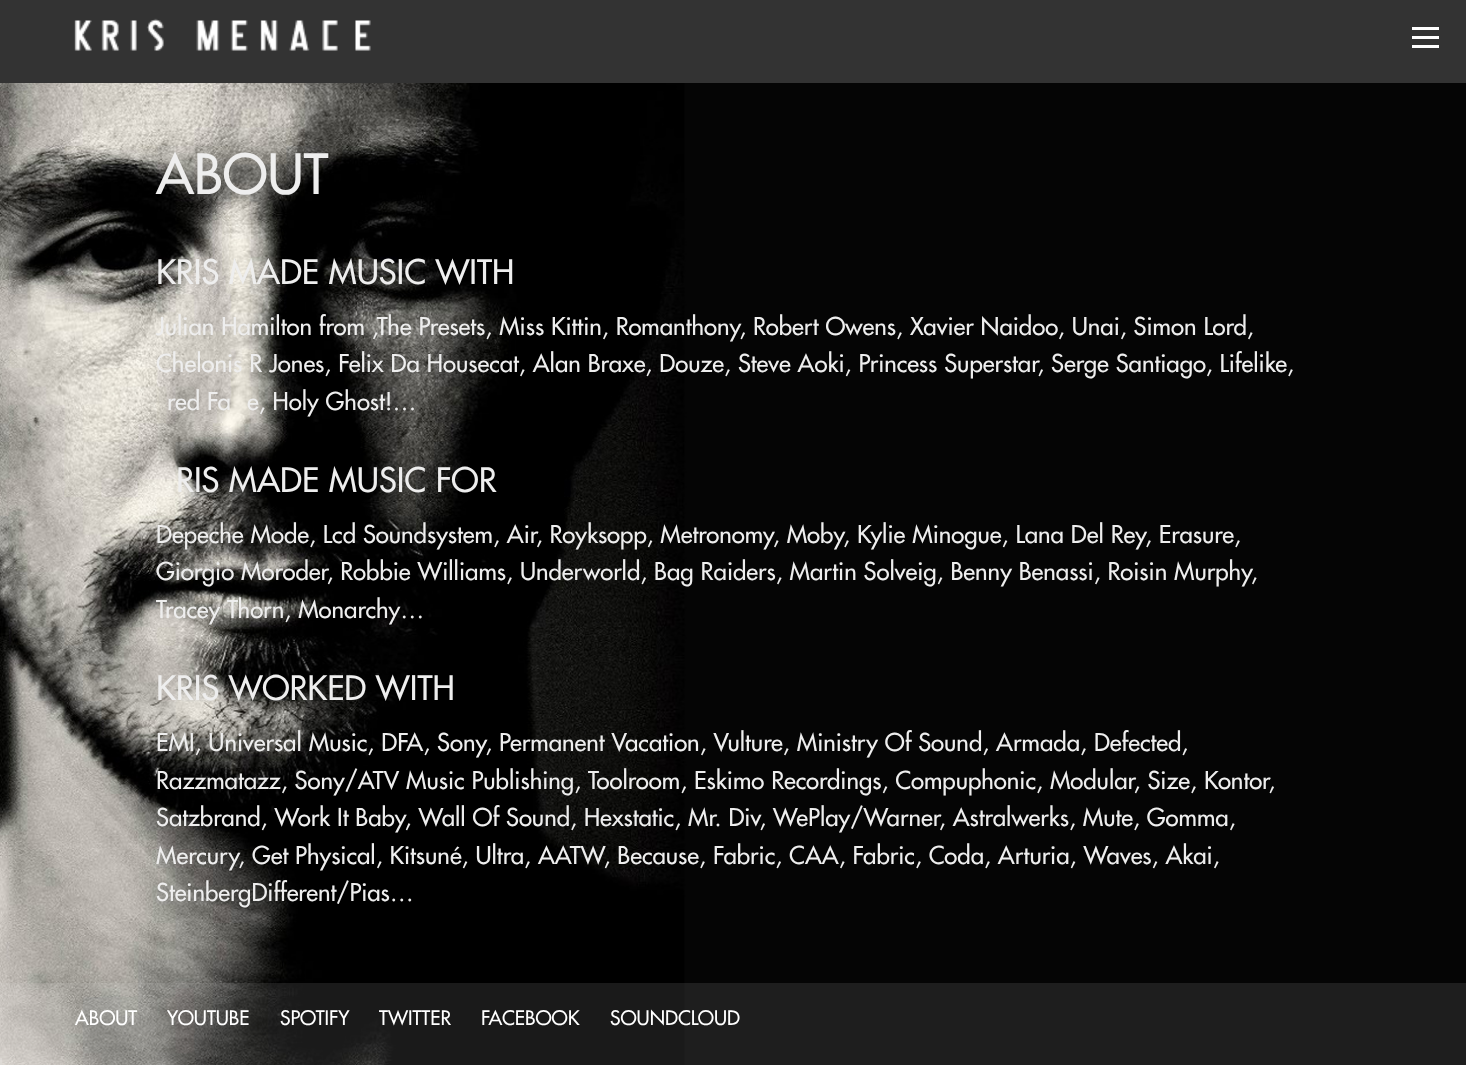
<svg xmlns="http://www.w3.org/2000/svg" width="1466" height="1065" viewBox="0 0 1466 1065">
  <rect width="100%" height="100%" fill="#ffffff"/>
  <image x="0" y="83" width="1466" height="982" href="img1.png"/>
  <rect x="0" y="0" width="1466" height="83" fill="#333333"/>
  <image x="74" y="18" width="297" height="33" href="img2.png"/>
  <rect x="1412" y="45" width="27" height="3" fill="#ffffff"/>
  <rect x="1412" y="36" width="27" height="3" fill="#ffffff"/>
  <rect x="1412" y="27" width="27" height="3" fill="#ffffff"/>
  <text x="156" y="194" font-family="Futura" font-size="54" font-weight="500" fill="#eeeeee">ABOUT</text>
  <text x="156" y="284" font-family="Futura" font-size="33" font-weight="500" fill="#eeeeee">KRIS MADE MUSIC WITH</text>
  <text x="156" y="335" font-family="Futura" font-size="24" font-weight="500" fill="#eeeeee">Julian Hamilton from ‚The Presets, Miss Kittin, Romanthony, Robert Owens, Xavier Naidoo, Unai, Simon Lord,</text>
  <text x="156" y="372" font-family="Futura" font-size="24" font-weight="500" fill="#eeeeee">Chelonis R Jones, Felix Da Housecat, Alan Braxe, Douze, Steve Aoki, Princess Superstar, Serge Santiago, Lifelike,</text>
  <text x="167" y="410" font-family="Futura" font-size="24" font-weight="500" fill="#eeeeee">red Fa</text>
  <text x="247" y="410" font-family="Futura" font-size="24" font-weight="500" fill="#eeeeee">e, Holy Ghost!…</text>
  <text x="176" y="492" font-family="Futura" font-size="33" font-weight="500" fill="#eeeeee">RIS MADE MUSIC FOR</text>
  <text x="156" y="543" font-family="Futura" font-size="24" font-weight="500" fill="#eeeeee">Depeche Mode, Lcd Soundsystem, Air, Royksopp, Metronomy, Moby, Kylie Minogue, Lana Del Rey, Erasure,</text>
  <text x="156" y="580" font-family="Futura" font-size="24" font-weight="500" fill="#eeeeee">Giorgio Moroder, Robbie Williams, Underworld, Bag Raiders, Martin Solveig, Benny Benassi, Roisin Murphy,</text>
  <text x="156" y="618" font-family="Futura" font-size="24" font-weight="500" fill="#eeeeee">Tracey Thorn, Monarchy…</text>
  <text x="156" y="700" font-family="Futura" font-size="33" font-weight="500" fill="#eeeeee">KRIS WORKED WITH</text>
  <text x="156" y="751" font-family="Futura" font-size="24" font-weight="500" fill="#eeeeee">EMI, Universal Music, DFA, Sony, Permanent Vacation, Vulture, Ministry Of Sound, Armada, Defected,</text>
  <text x="156" y="789" font-family="Futura" font-size="24" font-weight="500" fill="#eeeeee">Razzmatazz, Sony/ATV Music Publishing, Toolroom, Eskimo Recordings, Compuphonic, Modular, Size, Kontor,</text>
  <text x="156" y="826" font-family="Futura" font-size="24" font-weight="500" fill="#eeeeee">Satzbrand, Work It Baby, Wall Of Sound, Hexstatic, Mr. Div, WePlay/Warner, Astralwerks, Mute, Gomma,</text>
  <text x="156" y="864" font-family="Futura" font-size="24" font-weight="500" fill="#eeeeee">Mercury, Get Physical, Kitsuné, Ultra, AATW, Because, Fabric, CAA, Fabric, Coda, Arturia, Waves, Akai,</text>
  <text x="156" y="901" font-family="Futura" font-size="24" font-weight="500" fill="#eeeeee">SteinbergDifferent/Pias…</text>
  <rect x="0" y="983" width="1466" height="75" fill="#ffffff" fill-opacity="0.1"/>
  <text x="75" y="1025" font-family="Futura" font-size="19.5" font-weight="500" fill="#ffffff">ABOUT</text>
  <text x="167" y="1025" font-family="Futura" font-size="19.5" font-weight="500" fill="#ffffff">YOUTUBE</text>
  <text x="280" y="1025" font-family="Futura" font-size="19.5" font-weight="500" fill="#ffffff">SPOTIFY</text>
  <text x="379" y="1025" font-family="Futura" font-size="19.5" font-weight="500" fill="#ffffff">TWITTER</text>
  <text x="481" y="1025" font-family="Futura" font-size="19.5" font-weight="500" fill="#ffffff">FACEBOOK</text>
  <text x="610" y="1025" font-family="Futura" font-size="19.5" font-weight="500" fill="#ffffff">SOUNDCLOUD</text>
  <rect x="0" y="1058" width="1466" height="7" fill="#ffffff" fill-opacity="0.1"/>
  <rect x="0" y="1058" width="2" height="7" fill="#ffffff" fill-opacity="0.2"/>
</svg>
